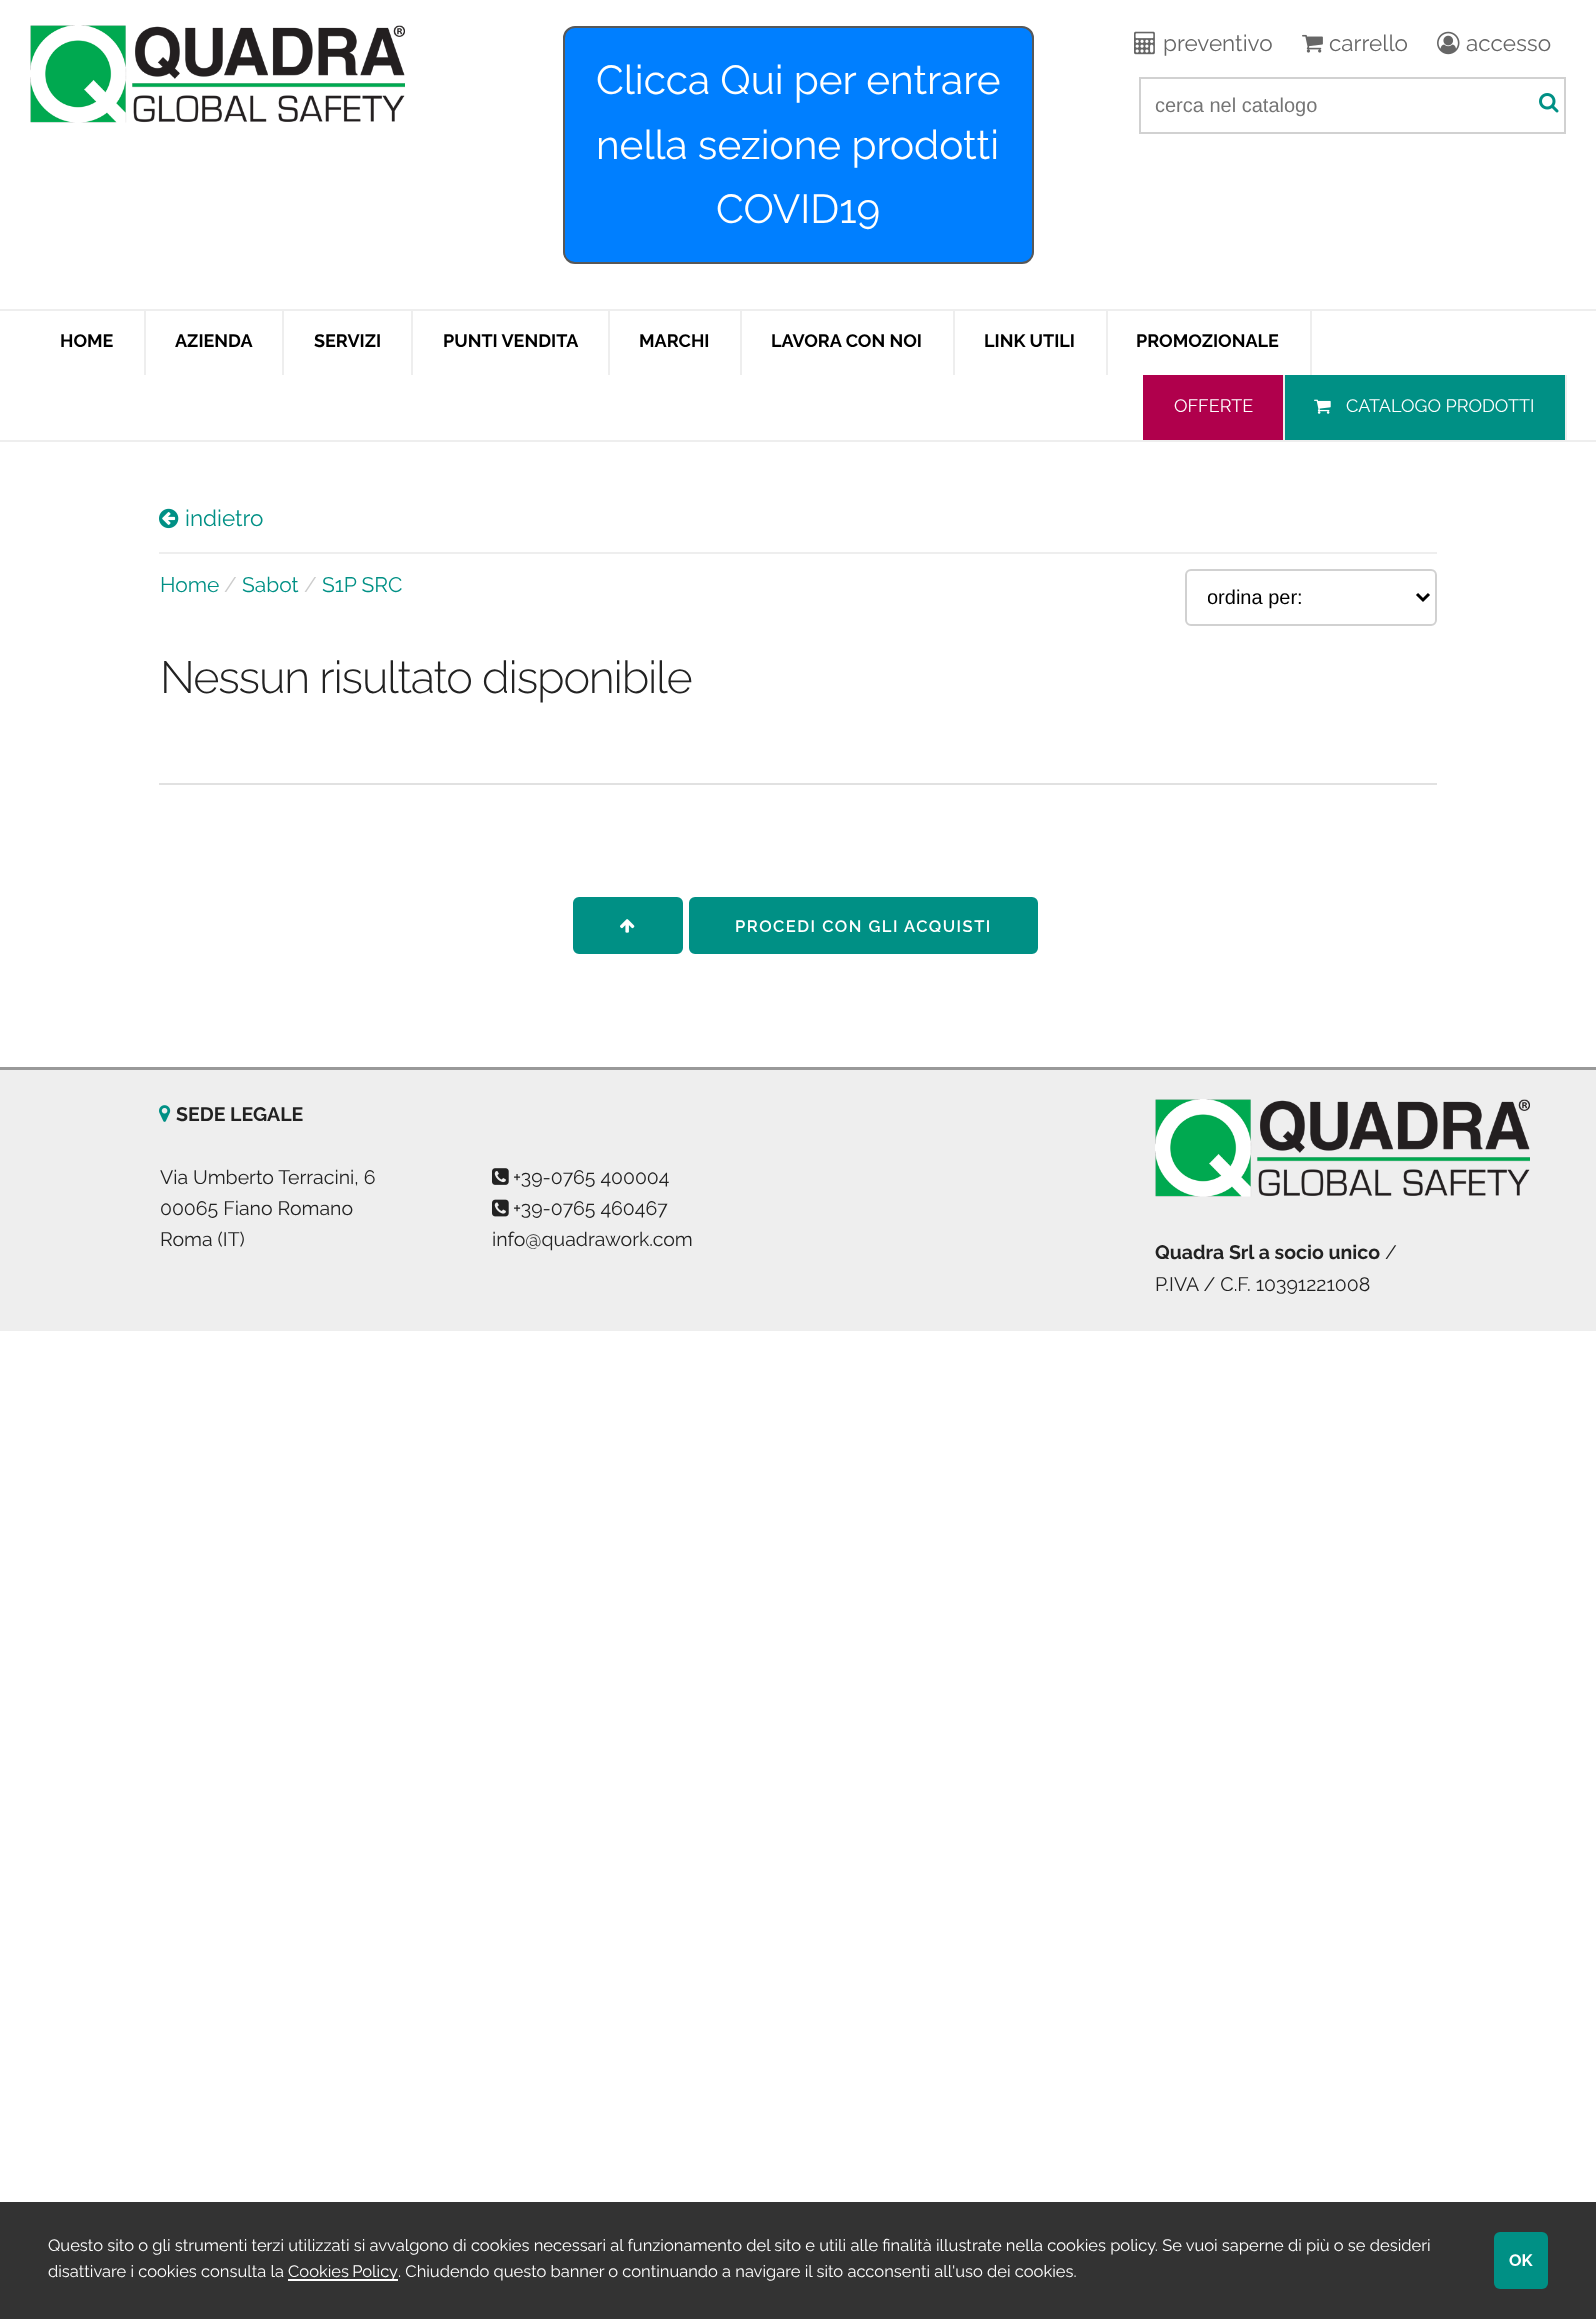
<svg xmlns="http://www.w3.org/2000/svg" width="1596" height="2319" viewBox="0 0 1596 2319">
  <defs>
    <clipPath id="clip1"><rect x="1208" y="584" width="189" height="25"/></clipPath>
  </defs>
  <rect width="100%" height="100%" fill="#ffffff"/>
  <image x="30" y="25" width="375" height="98" href="img1.png"/>
  <rect x="564" y="27" width="469" height="236" rx="11" fill="#007fff" stroke="#585858" stroke-width="2"/>
  <text x="596" y="94" font-family="Raleway" font-size="40.5" fill="#ffffff">Clicca Qui per entrare</text>
  <text x="596" y="159" font-family="Raleway" font-size="40.5" fill="#ffffff">nella sezione prodotti</text>
  <text x="716" y="223" font-family="Raleway" font-size="40.5" fill="#ffffff">COVID19</text>
  <image x="1134" y="31" width="21" height="24" href="img2.png"/>
  <text x="1163" y="51" font-family="Raleway" font-size="22.5" fill="#666666">preventivo</text>
  <image x="1302" y="34" width="21" height="19" href="img3.png"/>
  <text x="1329" y="51" font-family="Raleway" font-size="22.5" fill="#666666">carrello</text>
  <image x="1437" y="31" width="23" height="24" href="img4.png"/>
  <text x="1466" y="51" font-family="Raleway" font-size="22.5" fill="#666666">accesso</text>
  <rect x="1140" y="78" width="425" height="55" fill="none" stroke="#d1d1d1" stroke-width="2"/>
  <text x="1155" y="112" font-family="Liberation Sans" font-size="20" fill="#757575">cerca nel catalogo</text>
  <image x="1539" y="93" width="20" height="20" href="img5.png"/>
  <rect x="0" y="309" width="1596" height="2" fill="#eeeeee"/>
  <rect x="0" y="440" width="1596" height="2" fill="#eeeeee"/>
  <rect x="144" y="311" width="2" height="64" fill="#eeeeee"/>
  <text x="60" y="347" font-family="Raleway" font-size="18" font-weight="bold" fill="#000000">HOME</text>
  <rect x="282" y="311" width="2" height="64" fill="#eeeeee"/>
  <text x="175" y="347" font-family="Raleway" font-size="18" font-weight="bold" fill="#000000">AZIENDA</text>
  <rect x="411" y="311" width="2" height="64" fill="#eeeeee"/>
  <text x="314" y="347" font-family="Raleway" font-size="18" font-weight="bold" fill="#000000">SERVIZI</text>
  <rect x="608" y="311" width="2" height="64" fill="#eeeeee"/>
  <text x="443" y="347" font-family="Raleway" font-size="18" font-weight="bold" fill="#000000">PUNTI VENDITA</text>
  <rect x="740" y="311" width="2" height="64" fill="#eeeeee"/>
  <text x="639" y="347" font-family="Raleway" font-size="18" font-weight="bold" fill="#000000">MARCHI</text>
  <rect x="953" y="311" width="2" height="64" fill="#eeeeee"/>
  <text x="771" y="347" font-family="Raleway" font-size="18" font-weight="bold" fill="#000000">LAVORA CON NOI</text>
  <rect x="1106" y="311" width="2" height="64" fill="#eeeeee"/>
  <text x="984" y="347" font-family="Raleway" font-size="18" font-weight="bold" fill="#000000">LINK UTILI</text>
  <rect x="1310" y="311" width="2" height="64" fill="#eeeeee"/>
  <text x="1136" y="347" font-family="Raleway" font-size="18" font-weight="bold" fill="#000000">PROMOZIONALE</text>
  <rect x="1283" y="375" width="2" height="65" fill="#eeeeee"/>
  <rect x="1143" y="375" width="140" height="65" fill="#b0004c"/>
  <text x="1174" y="412" font-family="Raleway" font-size="18" fill="#ffffff">OFFERTE</text>
  <rect x="1565" y="375" width="2" height="65" fill="#eeeeee"/>
  <rect x="1285" y="375" width="280" height="65" fill="#009085"/>
  <image x="1314" y="399" width="17" height="15" href="img6.png"/>
  <text x="1346" y="412" font-family="Raleway" font-size="18" fill="#ffffff">CATALOGO PRODOTTI</text>
  <rect x="159" y="552" width="1278" height="2" fill="#eeeeee"/>
  <image x="159" y="508" width="20" height="21" href="img7.png"/>
  <text x="185" y="526" font-family="Raleway" font-size="22.5" fill="#009085">indietro</text>
  <text x="160" y="592" font-family="Raleway" font-size="21" fill="#009085">Home</text>
  <text x="224" y="592" font-family="Raleway" font-size="21" fill="#cccccc">/</text>
  <text x="242" y="592" font-family="Raleway" font-size="21" fill="#009085">Sabot</text>
  <text x="304" y="592" font-family="Raleway" font-size="21" fill="#cccccc">/</text>
  <text x="322" y="592" font-family="Raleway" font-size="21" fill="#009085">S1P SRC</text>
  <rect x="1186" y="570" width="250" height="55" rx="5" fill="none" stroke="#d1d1d1" stroke-width="2"/>
  <path d="M1417 594L1423 600L1429 594" fill="none" stroke="#000000" stroke-width="3"/>
  <g clip-path="url(#clip1)">
    <text x="1207" y="604" font-family="Liberation Sans" font-size="20" fill="#000000">ordina per:</text>
  </g>
  <text x="160" y="693" font-family="Raleway" font-size="45" font-weight="300" letter-spacing="-1.2" fill="#222222">Nessun risultato disponibile</text>
  <rect x="159" y="783" width="1278" height="2" fill="#e1e1e1"/>
  <rect x="574" y="898" width="108" height="55" rx="5" fill="#009085" stroke="#009085" stroke-width="2"/>
  <image x="620" y="919" width="15" height="14" href="img8.png"/>
  <rect x="690" y="898" width="347" height="55" rx="5" fill="#009085" stroke="#009085" stroke-width="2"/>
  <text x="735" y="932" font-family="Raleway" font-size="16.5" font-weight="600" letter-spacing="1.5" fill="#ffffff">PROCEDI CON GLI ACQUISTI</text>
  <rect x="0" y="1070" width="1596" height="261" fill="#eeeeee"/>
  <rect x="0" y="1067" width="1596" height="3" fill="#999999"/>
  <image x="159" y="1105" width="12" height="17" href="img9.png"/>
  <text x="176" y="1121" font-family="Raleway" font-size="19.5" font-weight="bold" fill="#222222">SEDE LEGALE</text>
  <text x="160" y="1184" font-family="Raleway" font-size="19.5" fill="#222222">Via Umberto Terracini, 6</text>
  <text x="160" y="1215" font-family="Raleway" font-size="19.5" fill="#222222">00065 Fiano Romano</text>
  <text x="160" y="1246" font-family="Raleway" font-size="19.5" fill="#222222">Roma (IT)</text>
  <image x="492" y="1168" width="17" height="17" href="img10.png"/>
  <text x="513" y="1184" font-family="Raleway" font-size="19.5" fill="#222222">+39-0765 400004</text>
  <image x="492" y="1199" width="17" height="18" href="img11.png"/>
  <text x="513" y="1215" font-family="Raleway" font-size="19.5" fill="#222222">+39-0765 460467</text>
  <text x="492" y="1246" font-family="Raleway" font-size="19.5" fill="#222222">info@quadrawork.com</text>
  <image x="1155" y="1099" width="375" height="98" href="img12.png"/>
  <text x="1155" y="1259" font-family="Raleway" font-size="19.5" font-weight="bold" fill="#222222">Quadra Srl a socio unico</text>
  <text x="1385" y="1259" font-family="Raleway" font-size="19.5" fill="#222222">/</text>
  <text x="1155" y="1291" font-family="Raleway" font-size="19.5" fill="#222222">P.IVA / C.F. 10391221008</text>
  <rect x="0" y="2202" width="1596" height="117" fill="#333333"/>
  <text x="48" y="2251" font-family="Raleway" font-size="16.5" fill="#ffffff">Questo sito o gli strumenti terzi utilizzati si avvalgono di cookies necessari al funzionamento del sito e utili alle finalità illustrate nella cookies policy. Se vuoi saperne di più o se desideri</text>
  <rect x="1494" y="2232" width="54" height="57" rx="6" fill="#009085"/>
  <text x="1509" y="2266" font-family="Raleway" font-size="16.5" font-weight="bold" fill="#ffffff">OK</text>
  <text x="48" y="2277" font-family="Raleway" font-size="16.5" fill="#ffffff">disattivare i cookies consulta la</text>
  <rect x="288" y="2279" width="110" height="2" fill="#ffffff"/>
  <text x="288" y="2277" word-spacing="-1" font-family="Raleway" font-size="16.5" fill="#ffffff">Cookies Policy</text>
  <text x="398" y="2277" font-family="Raleway" font-size="16.5" fill="#ffffff">. Chiudendo questo banner o continuando a navigare il sito acconsenti all'uso dei cookies.</text>
</svg>
